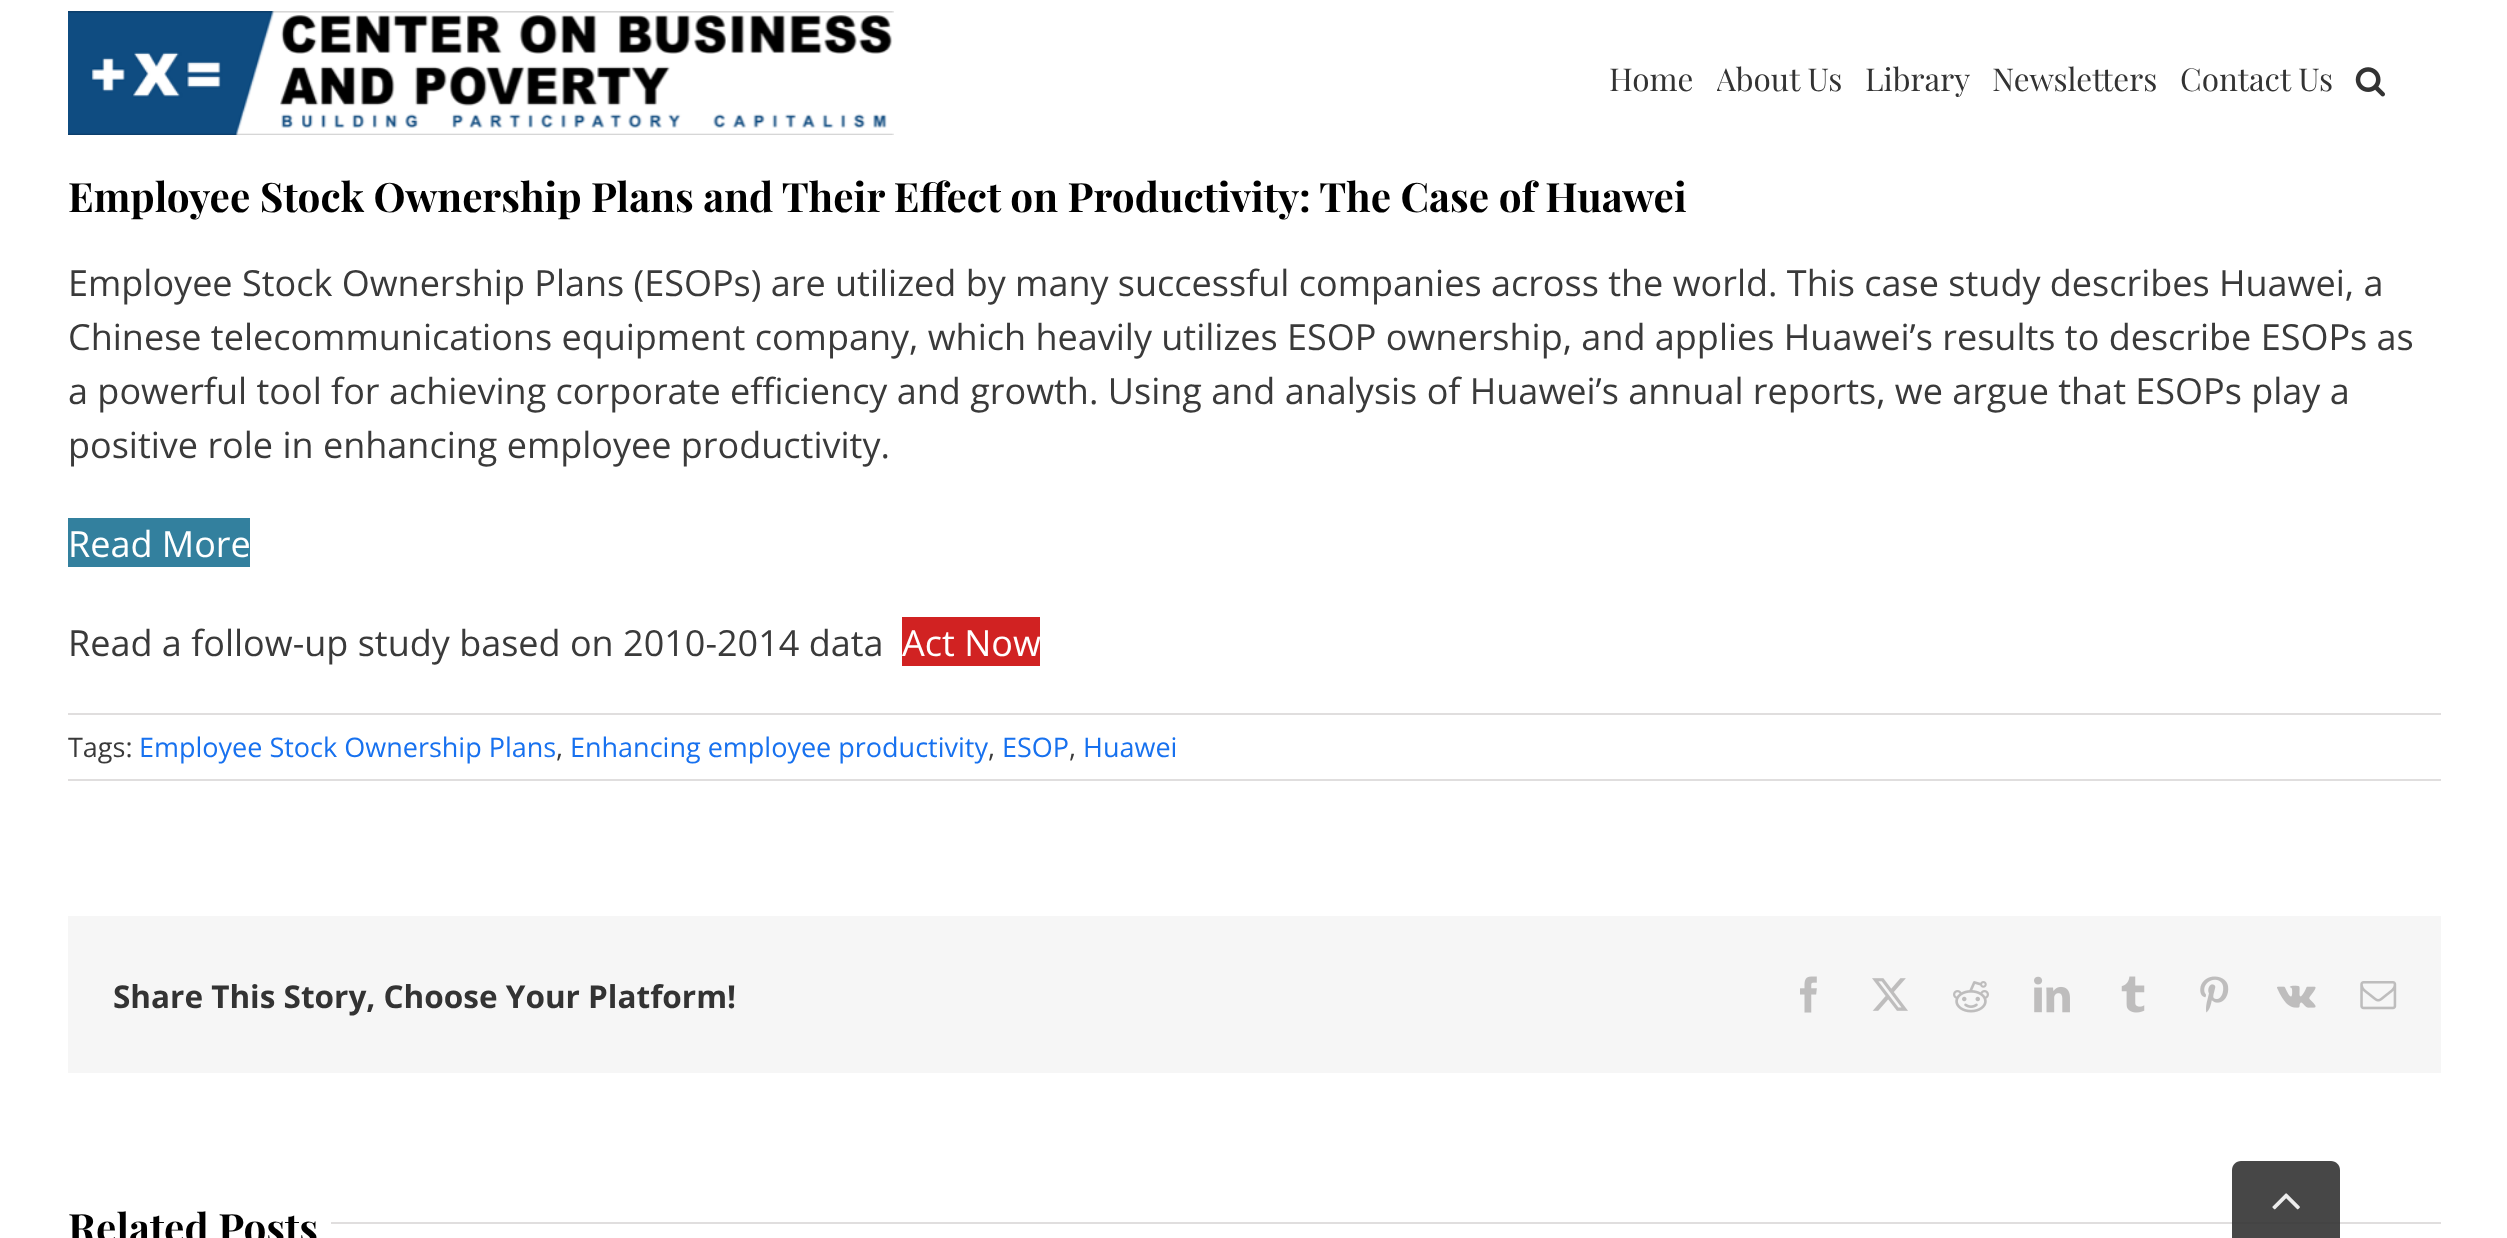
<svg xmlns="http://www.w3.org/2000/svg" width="2507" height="1238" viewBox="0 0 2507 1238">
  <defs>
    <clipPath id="clip1"><rect x="1717" y="0" width="148" height="146"/></clipPath>
    <clipPath id="clip2"><rect x="68" y="716" width="2373" height="63"/></clipPath>
  </defs>
  <rect width="100%" height="100%" fill="rgb(255,255,255)"/>
  <image x="68" y="11" width="826" height="124" href="pic1.png"/>
  <text x="1609" y="91" font-family="Playfair Display" font-size="31.5" fill="rgb(51,51,51)">Home</text>
  <g clip-path="url(#clip1)">
    <text x="1716" y="91" font-family="Playfair Display" font-size="31.5" fill="rgb(51,51,51)">About Us</text>
  </g>
  <g font-family="Playfair Display" font-size="31.5" fill="rgb(51,51,51)">
    <text x="1865" y="91">Library</text>
    <text x="1992" y="91">Newsletters</text>
    <text x="2180" y="91">Contact Us</text>
  </g>
  <image x="2355" y="67" width="30" height="30" href="pic2.png"/>
  <text x="68" y="212" font-family="Playfair Display" font-size="40.5" font-weight="bold" fill="rgb(0,0,0)">Employee Stock Ownership Plans and Their Effect on Productivity: The Case of Huawei</text>
  <g font-family="Open Sans" font-size="36" fill="rgb(58,58,58)">
    <text>
      <tspan x="68" y="296">Employee Stock Ownership Plans (ESOPs) are utilized by many successful companies across the world. This case study describes Huawei, a</tspan>
      <tspan x="68" y="350">Chinese telecommunications equipment company, which heavily utilizes ESOP ownership, and applies Huawei’s results to describe ESOPs as</tspan>
      <tspan x="68" y="404">a powerful tool for achieving corporate efficiency and growth. Using and analysis of Huawei’s annual reports, we argue that ESOPs play a</tspan>
      <tspan x="68" y="458">positive role in enhancing employee productivity.</tspan>
    </text>
  </g>
  <rect x="68" y="518" width="182" height="49" fill="rgb(51,128,158)"/>
  <text x="68" y="557" font-family="Open Sans" font-size="36" fill="rgb(255,255,255)">Read More</text>
  <text x="68" y="656" font-family="Open Sans" font-size="36" fill="rgb(58,58,58)">Read a follow-up study based on 2010-2014 data</text>
  <rect x="902" y="617" width="138" height="49" fill="rgb(209,34,34)"/>
  <text x="902" y="656" font-family="Open Sans" font-size="36" fill="rgb(255,255,255)">Act Now</text>
  <rect x="68" y="713" width="2373" height="2" fill="rgb(224,222,222)"/>
  <rect x="68" y="779" width="2373" height="2" fill="rgb(224,222,222)"/>
  <g clip-path="url(#clip2)">
    <text x="68" y="757" font-family="Open Sans" font-size="27" fill="rgb(58,58,58)">Tags:</text>
  </g>
  <text x="139" y="757" font-family="Open Sans" font-size="27" fill="rgb(23,113,239)">Employee Stock Ownership Plans</text>
  <text x="556" y="757" font-family="Open Sans" font-size="27" fill="rgb(58,58,58)">,</text>
  <text x="570" y="757" font-family="Open Sans" font-size="27" fill="rgb(23,113,239)">Enhancing employee productivity</text>
  <text x="988" y="757" font-family="Open Sans" font-size="27" fill="rgb(58,58,58)">,</text>
  <text x="1002" y="757" font-family="Open Sans" font-size="27" fill="rgb(23,113,239)">ESOP</text>
  <text x="1069" y="757" font-family="Open Sans" font-size="27" fill="rgb(58,58,58)">,</text>
  <text x="1083" y="757" font-family="Open Sans" font-size="27" fill="rgb(23,113,239)">Huawei</text>
  <rect x="68" y="916" width="2373" height="157" fill="rgb(246,246,246)"/>
  <text x="113" y="1008" font-family="Open Sans" font-size="31.5" font-weight="bold" fill="rgb(51,51,51)">Share This Story, Choose Your Platform!</text>
  <image x="1800" y="976" width="17" height="37" href="pic3.png"/>
  <image x="1872" y="978" width="36" height="33" href="pic4.png"/>
  <image x="1953" y="981" width="36" height="32" href="pic5.png"/>
  <image x="2034" y="976" width="36" height="37" href="pic6.png"/>
  <image x="2121" y="976" width="24" height="37" href="pic7.png"/>
  <image x="2200" y="976" width="29" height="37" href="pic8.png"/>
  <image x="2277" y="985" width="39" height="23" href="pic9.png"/>
  <image x="2360" y="981" width="37" height="29" href="pic10.png"/>
  <text x="68" y="1243" font-family="Playfair Display" font-size="40.5" font-weight="bold" fill="rgb(0,0,0)">Related Posts</text>
  <rect x="331" y="1222" width="2110" height="2" fill="rgb(224,222,222)"/>
  <path d="M2241 1161H2331C2336 1161 2340 1165 2340 1170V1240H2232V1170C2232 1165 2236 1161 2241 1161Z" fill="rgba(51,51,51,0.9)"/>
  <image x="2272" y="1193" width="28" height="17" href="pic11.png"/>
</svg>
